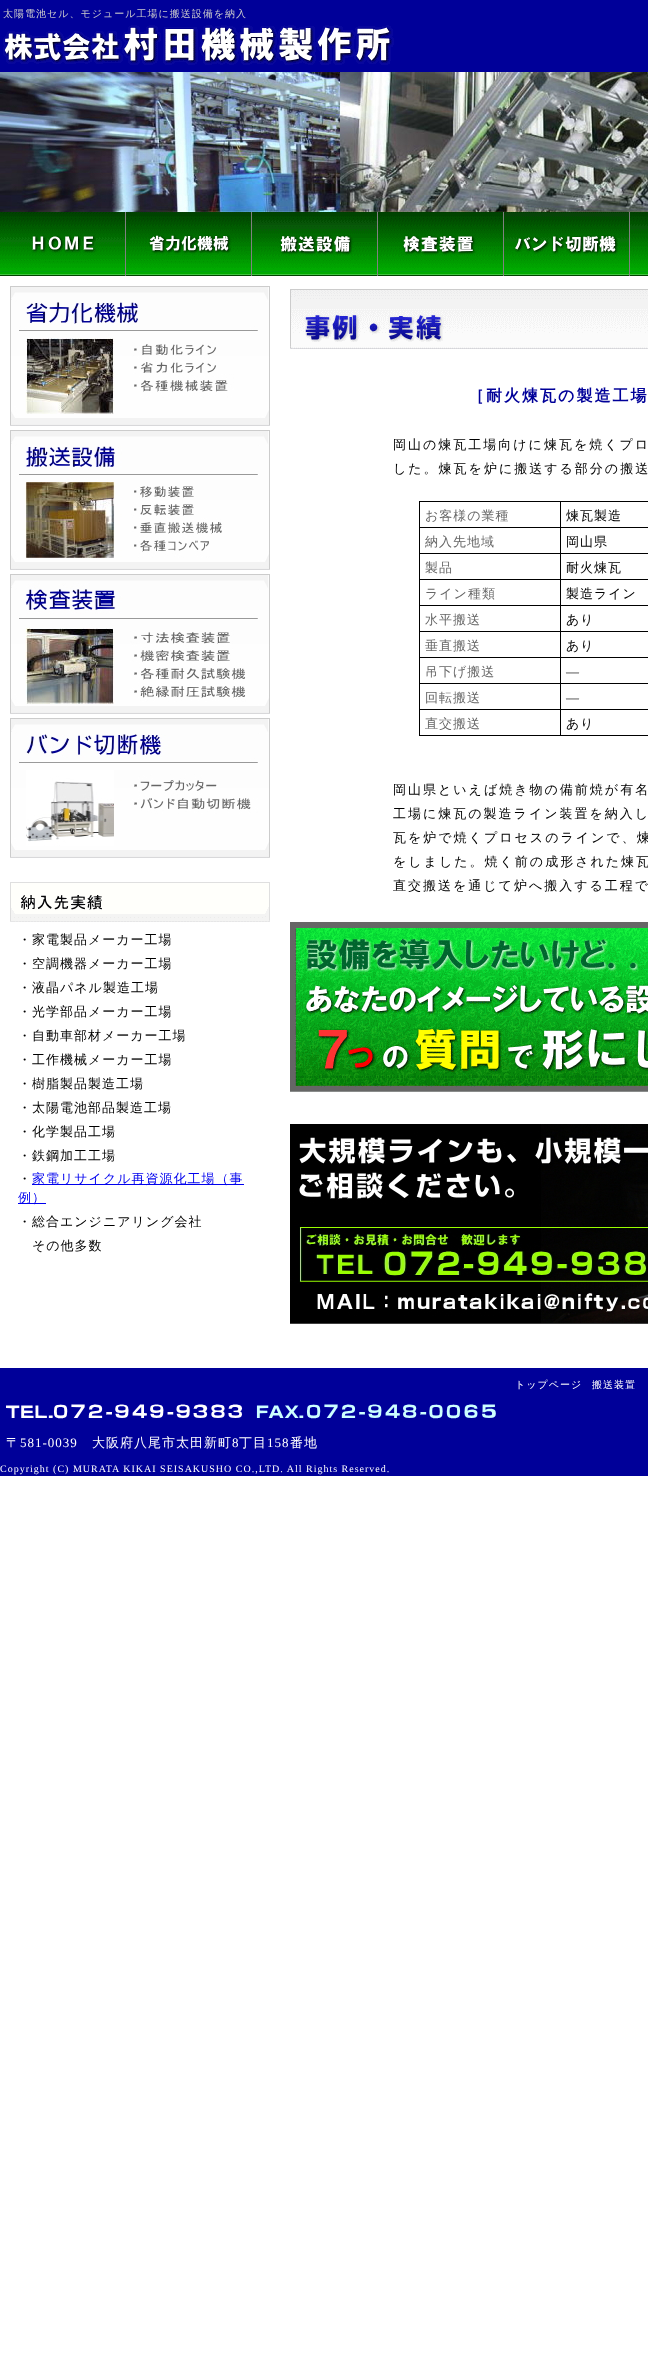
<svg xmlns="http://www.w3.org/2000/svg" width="648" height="2365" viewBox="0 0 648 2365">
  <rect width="100%" height="100%" fill="rgb(255,255,255)"/>
  <rect x="0" y="0" width="648" height="72" fill="rgb(0,0,153)"/>
  <text x="3" y="17" font-family="WenQuanYi Zen Hei" font-size="10" font-weight="500" letter-spacing="1" fill="rgb(204,204,204)">太陽電池セル、モジュール工場に搬送設備を納入</text>
  <image x="3" y="25" width="391" height="40" href="pic1.png"/>
  <image x="0" y="72" width="648" height="140" href="pic2.png"/>
  <image x="0" y="272" width="648" height="4" href="pic3.png"/>
  <rect x="125" y="212" width="1" height="64" fill="rgb(128,128,128)"/>
  <image x="0" y="212" width="125" height="60" href="pic4.png"/>
  <rect x="251" y="212" width="1" height="64" fill="rgb(128,128,128)"/>
  <image x="126" y="212" width="125" height="60" href="pic5.png"/>
  <rect x="377" y="212" width="1" height="64" fill="rgb(128,128,128)"/>
  <image x="252" y="212" width="125" height="60" href="pic6.png"/>
  <rect x="503" y="212" width="1" height="64" fill="rgb(128,128,128)"/>
  <image x="378" y="212" width="125" height="60" href="pic7.png"/>
  <rect x="629" y="212" width="1" height="64" fill="rgb(128,128,128)"/>
  <image x="504" y="212" width="125" height="60" href="pic8.png"/>
  <image x="630" y="212" width="18" height="60" href="pic9.png"/>
  <image x="290" y="289" width="358" height="60" href="pic10.png"/>
  <text x="468" y="401" font-family="WenQuanYi Zen Hei" font-size="16" font-weight="bold" letter-spacing="2" fill="rgb(0,0,153)">［耐火煉瓦の製造工場</text>
  <g font-family="WenQuanYi Zen Hei" font-size="13" font-weight="500" letter-spacing="2" fill="rgb(0,0,0)">
    <text>
      <tspan x="393" y="449">岡山の煉瓦工場向けに煉瓦を焼くプロ</tspan>
      <tspan x="393" y="473">した。煉瓦を炉に搬送する部分の搬送</tspan>
    </text>
  </g>
  <rect x="419" y="501" width="229" height="1" fill="rgb(0,0,0)"/>
  <rect x="419" y="501" width="1" height="235" fill="rgb(0,0,0)"/>
  <rect x="560" y="502" width="1" height="234" fill="rgb(0,0,0)"/>
  <rect x="420" y="527" width="228" height="1" fill="rgb(0,0,0)"/>
  <text x="425" y="520" font-family="WenQuanYi Zen Hei" font-size="13" font-weight="500" letter-spacing="1" fill="rgb(102,102,102)">お客様の業種</text>
  <text x="566" y="520" font-family="WenQuanYi Zen Hei" font-size="13" font-weight="500" letter-spacing="1" fill="rgb(0,0,0)">煉瓦製造</text>
  <rect x="420" y="553" width="228" height="1" fill="rgb(0,0,0)"/>
  <text x="425" y="546" font-family="WenQuanYi Zen Hei" font-size="13" font-weight="500" letter-spacing="1" fill="rgb(102,102,102)">納入先地域</text>
  <text x="566" y="546" font-family="WenQuanYi Zen Hei" font-size="13" font-weight="500" letter-spacing="1" fill="rgb(0,0,0)">岡山県</text>
  <rect x="420" y="579" width="228" height="1" fill="rgb(0,0,0)"/>
  <text x="425" y="572" font-family="WenQuanYi Zen Hei" font-size="13" font-weight="500" letter-spacing="1" fill="rgb(102,102,102)">製品</text>
  <text x="566" y="572" font-family="WenQuanYi Zen Hei" font-size="13" font-weight="500" letter-spacing="1" fill="rgb(0,0,0)">耐火煉瓦</text>
  <rect x="420" y="605" width="228" height="1" fill="rgb(0,0,0)"/>
  <text x="425" y="598" font-family="WenQuanYi Zen Hei" font-size="13" font-weight="500" letter-spacing="1" fill="rgb(102,102,102)">ライン種類</text>
  <text x="566" y="598" font-family="WenQuanYi Zen Hei" font-size="13" font-weight="500" letter-spacing="1" fill="rgb(0,0,0)">製造ライン</text>
  <rect x="420" y="631" width="228" height="1" fill="rgb(0,0,0)"/>
  <text x="425" y="624" font-family="WenQuanYi Zen Hei" font-size="13" font-weight="500" letter-spacing="1" fill="rgb(102,102,102)">水平搬送</text>
  <text x="566" y="624" font-family="WenQuanYi Zen Hei" font-size="13" font-weight="500" letter-spacing="1" fill="rgb(0,0,0)">あり</text>
  <rect x="420" y="657" width="228" height="1" fill="rgb(0,0,0)"/>
  <text x="425" y="650" font-family="WenQuanYi Zen Hei" font-size="13" font-weight="500" letter-spacing="1" fill="rgb(102,102,102)">垂直搬送</text>
  <text x="566" y="650" font-family="WenQuanYi Zen Hei" font-size="13" font-weight="500" letter-spacing="1" fill="rgb(0,0,0)">あり</text>
  <rect x="420" y="683" width="228" height="1" fill="rgb(0,0,0)"/>
  <text x="425" y="676" font-family="WenQuanYi Zen Hei" font-size="13" font-weight="500" letter-spacing="1" fill="rgb(102,102,102)">吊下げ搬送</text>
  <text x="566" y="676" font-family="Liberation Serif" font-size="13" letter-spacing="1" fill="rgb(0,0,0)">―</text>
  <rect x="420" y="709" width="228" height="1" fill="rgb(0,0,0)"/>
  <text x="425" y="702" font-family="WenQuanYi Zen Hei" font-size="13" font-weight="500" letter-spacing="1" fill="rgb(102,102,102)">回転搬送</text>
  <text x="566" y="702" font-family="Liberation Serif" font-size="13" letter-spacing="1" fill="rgb(0,0,0)">―</text>
  <rect x="420" y="735" width="228" height="1" fill="rgb(0,0,0)"/>
  <text x="425" y="728" font-family="WenQuanYi Zen Hei" font-size="13" font-weight="500" letter-spacing="1" fill="rgb(102,102,102)">直交搬送</text>
  <text x="566" y="728" font-family="WenQuanYi Zen Hei" font-size="13" font-weight="500" letter-spacing="1" fill="rgb(0,0,0)">あり</text>
  <g font-family="WenQuanYi Zen Hei" font-size="13" font-weight="500" letter-spacing="2" fill="rgb(0,0,0)">
    <text>
      <tspan x="393" y="794">岡山県といえば焼き物の備前焼が有名</tspan>
      <tspan x="393" y="818">工場に煉瓦の製造ライン装置を納入し</tspan>
      <tspan x="393" y="842">瓦を炉で焼くプロセスのラインで、煉</tspan>
      <tspan x="393" y="866">をしました。焼く前の成形された煉瓦</tspan>
      <tspan x="393" y="890">直交搬送を通じて炉へ搬入する工程で</tspan>
    </text>
  </g>
  <image x="290" y="922" width="358" height="170" href="pic11.png"/>
  <image x="290" y="1124" width="358" height="200" href="pic12.png"/>
  <image x="10" y="286" width="260" height="140" href="pic13.png"/>
  <image x="10" y="430" width="260" height="140" href="pic14.png"/>
  <image x="10" y="574" width="260" height="140" href="pic15.png"/>
  <image x="10" y="718" width="260" height="140" href="pic16.png"/>
  <image x="10" y="882" width="260" height="40" href="pic17.png"/>
  <g font-family="WenQuanYi Zen Hei" font-size="13" font-weight="500" letter-spacing="1" fill="rgb(0,0,0)">
    <text>
      <tspan x="18" y="944">・家電製品メーカー工場</tspan>
      <tspan x="18" y="968">・空調機器メーカー工場</tspan>
      <tspan x="18" y="992">・液晶パネル製造工場</tspan>
      <tspan x="18" y="1016">・光学部品メーカー工場</tspan>
      <tspan x="18" y="1040">・自動車部材メーカー工場</tspan>
      <tspan x="18" y="1064">・工作機械メーカー工場</tspan>
      <tspan x="18" y="1088">・樹脂製品製造工場</tspan>
      <tspan x="18" y="1112">・太陽電池部品製造工場</tspan>
      <tspan x="18" y="1136">・化学製品工場</tspan>
      <tspan x="18" y="1160">・鉄鋼加工工場</tspan>
      <tspan x="18" y="1183">・</tspan>
    </text>
  </g>
  <rect x="32" y="1184" width="212" height="1" fill="rgb(0,0,238)"/>
  <text x="32" y="1183" font-family="WenQuanYi Zen Hei" font-size="13" font-weight="500" letter-spacing="1" fill="rgb(0,0,238)">家電リサイクル再資源化工場（事</text>
  <rect x="18" y="1203" width="28" height="1" fill="rgb(0,0,238)"/>
  <text x="18" y="1202" font-family="WenQuanYi Zen Hei" font-size="13" font-weight="500" letter-spacing="1" fill="rgb(0,0,238)">例）</text>
  <g font-family="WenQuanYi Zen Hei" font-size="13" font-weight="500" letter-spacing="1" fill="rgb(0,0,0)">
    <text x="18" y="1226">・総合エンジニアリング会社</text>
    <text x="32" y="1250">その他多数</text>
  </g>
  <rect x="0" y="1368" width="648" height="108" fill="rgb(0,0,153)"/>
  <g font-family="WenQuanYi Zen Hei" font-size="10" font-weight="500" letter-spacing="1" fill="rgb(255,255,255)">
    <text x="515" y="1388">トップページ</text>
    <text x="592" y="1388">搬送装置</text>
  </g>
  <image x="6" y="1404" width="490" height="15" href="pic18.png"/>
  <text x="6" y="1447" font-family="WenQuanYi Zen Hei" font-size="13" font-weight="500" letter-spacing="1" fill="rgb(255,255,255)">〒</text>
  <text x="20" y="1447" font-family="Liberation Serif" font-size="13" letter-spacing="1" fill="rgb(255,255,255)">581-0039</text>
  <text x="92" y="1447" font-family="WenQuanYi Zen Hei" font-size="13" font-weight="500" letter-spacing="1" fill="rgb(255,255,255)">大阪府八尾市太田新町</text>
  <text x="232" y="1447" font-family="Liberation Serif" font-size="13" letter-spacing="1" fill="rgb(255,255,255)">8</text>
  <text x="239" y="1447" font-family="WenQuanYi Zen Hei" font-size="13" font-weight="500" letter-spacing="1" fill="rgb(255,255,255)">丁目</text>
  <text x="267" y="1447" font-family="Liberation Serif" font-size="13" letter-spacing="1" fill="rgb(255,255,255)">158</text>
  <text x="290" y="1447" font-family="WenQuanYi Zen Hei" font-size="13" font-weight="500" letter-spacing="1" fill="rgb(255,255,255)">番地</text>
  <text x="0" y="1472" font-family="Liberation Serif" font-size="10" letter-spacing="1" fill="rgb(255,255,255)">Copyright (C) MURATA KIKAI SEISAKUSHO CO.,LTD. All Rights Reserved.</text>
</svg>
